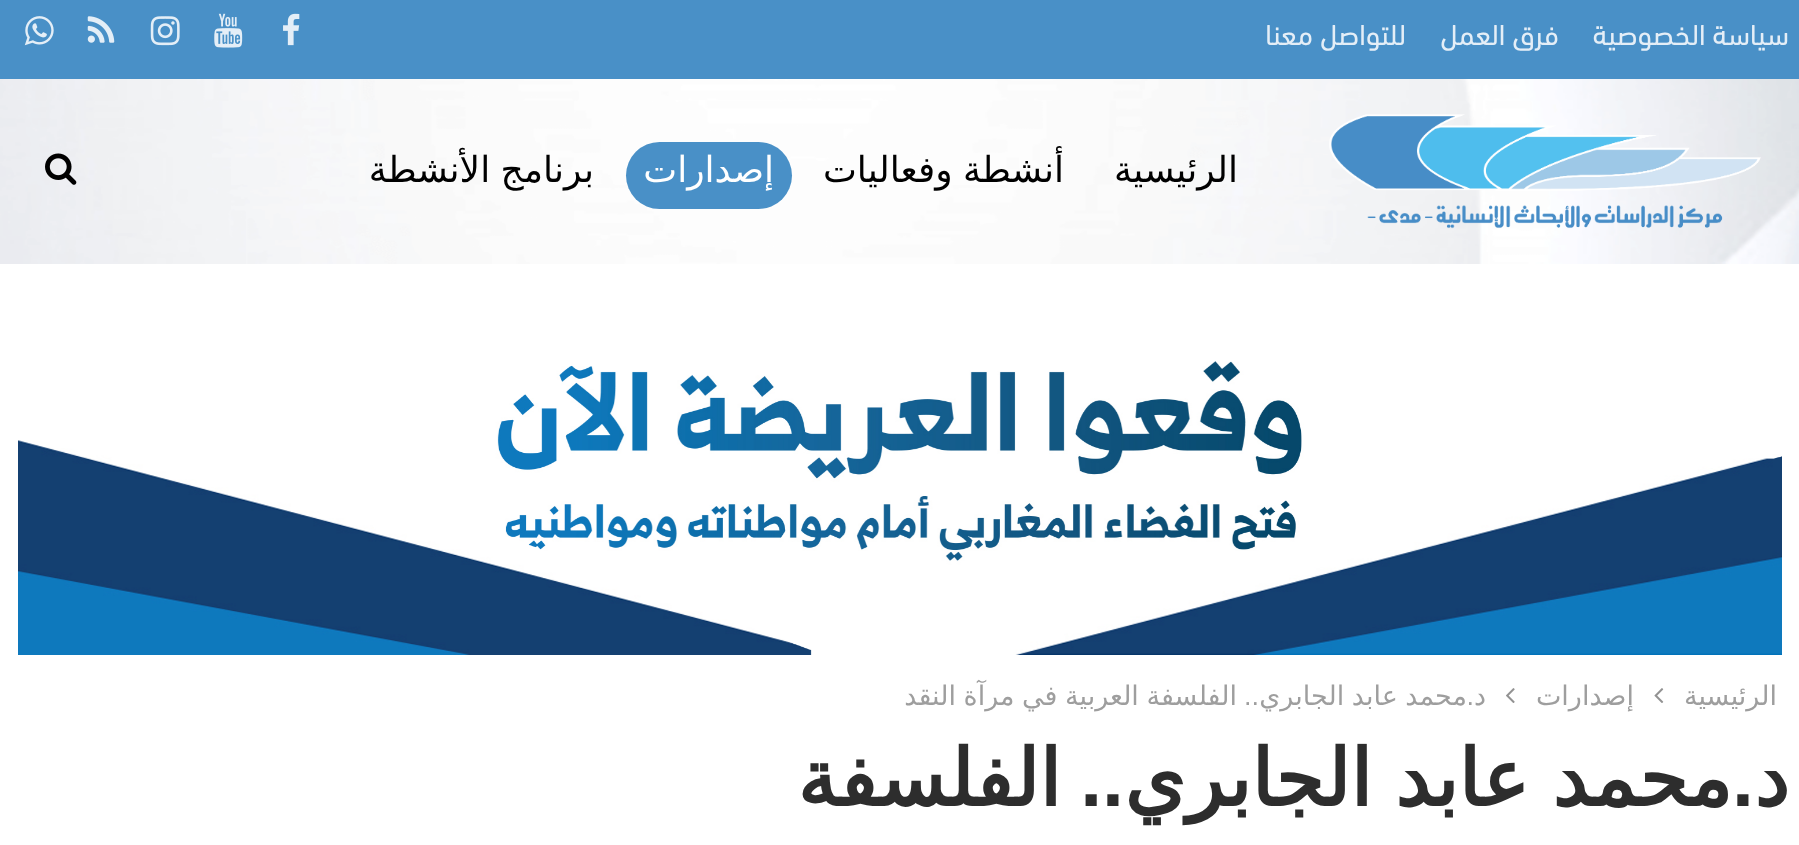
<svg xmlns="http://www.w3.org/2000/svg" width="1799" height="845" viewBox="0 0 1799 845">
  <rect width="100%" height="100%" fill="rgb(255,255,255)"/>
  <image x="0" y="79" width="1799" height="185" href="pic1.png"/>
  <rect x="0" y="0" width="1799" height="79" fill="rgb(73,144,199)"/>
  <g font-family="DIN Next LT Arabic" font-size="29.25" direction="rtl" fill="rgb(228,238,247)">
    <text x="1789" y="45">سياسة الخصوصية</text>
    <text x="1559" y="45">فرق العمل</text>
    <text x="1406" y="45">للتواصل معنا</text>
  </g>
  <image x="283" y="13" width="17" height="33" href="pic2.png"/>
  <image x="214" y="13" width="29" height="35" href="pic3.png"/>
  <image x="150" y="16" width="30" height="30" href="pic4.png"/>
  <image x="87" y="16" width="28" height="27" href="pic5.png"/>
  <image x="24" y="16" width="30" height="30" href="pic6.png"/>
  <image x="1329" y="114" width="432" height="115" href="pic7.png"/>
  <g font-family="DejaVu Sans" font-size="36" direction="rtl" fill="rgb(0,0,0)">
    <text x="1238" y="182">الرئيسية</text>
    <text x="1064" y="182" word-spacing="-1">أنشطة وفعاليات</text>
  </g>
  <rect x="626" y="142" width="166" height="67" rx="33.5" fill="rgb(73,144,199)"/>
  <text x="774" y="182" font-family="DejaVu Sans" font-size="36" direction="rtl" fill="rgb(255,255,255)">إصدارات</text>
  <text x="594" y="182" word-spacing="-1" font-family="DejaVu Sans" font-size="36" direction="rtl" fill="rgb(0,0,0)">برنامج الأنشطة</text>
  <image x="45" y="153" width="32" height="32" href="pic8.png"/>
  <image x="18" y="361" width="1764" height="294" href="pic9.png"/>
  <text x="1777" y="705" font-family="DejaVu Sans" font-size="27" direction="rtl" fill="rgb(158,158,158)">الرئيسية</text>
  <image x="1654" y="688" width="10" height="15" href="pic10.png"/>
  <text x="1634" y="705" font-family="DejaVu Sans" font-size="27" direction="rtl" fill="rgb(158,158,158)">إصدارات</text>
  <image x="1506" y="688" width="9" height="15" href="pic11.png"/>
  <text x="1486" y="705" font-family="DejaVu Sans" font-size="27" direction="rtl" fill="rgb(158,158,158)">د</text>
  <text x="1474" y="705" font-family="Liberation Sans" font-size="27" direction="rtl" fill="rgb(158,158,158)">.</text>
  <text x="1467" y="705" word-spacing="-1" font-family="DejaVu Sans" font-size="27" direction="rtl" fill="rgb(158,158,158)">محمد عابد الجابري</text>
  <text x="1259" y="705" font-family="Liberation Sans" font-size="27" direction="rtl" fill="rgb(158,158,158)">..</text>
  <text x="1237" y="705" word-spacing="-1" font-family="DejaVu Sans" font-size="27" direction="rtl" fill="rgb(158,158,158)">الفلسفة العربية في مرآة النقد</text>
  <text x="1789" y="806" font-family="DejaVu Sans" font-size="78.75" font-weight="bold" direction="rtl" fill="rgb(45,45,45)">د</text>
  <text x="1754" y="806" font-family="Liberation Sans" font-size="78.75" font-weight="bold" direction="rtl" fill="rgb(45,45,45)">.</text>
  <text x="1732" y="806" word-spacing="-2" font-family="DejaVu Sans" font-size="78.75" font-weight="bold" direction="rtl" fill="rgb(45,45,45)">محمد عابد الجابري</text>
  <text x="1124" y="806" font-family="Liberation Sans" font-size="78.75" font-weight="bold" direction="rtl" fill="rgb(45,45,45)">..</text>
  <text x="1061" y="806" font-family="DejaVu Sans" font-size="78.75" font-weight="bold" direction="rtl" fill="rgb(45,45,45)">الفلسفة</text>
</svg>
